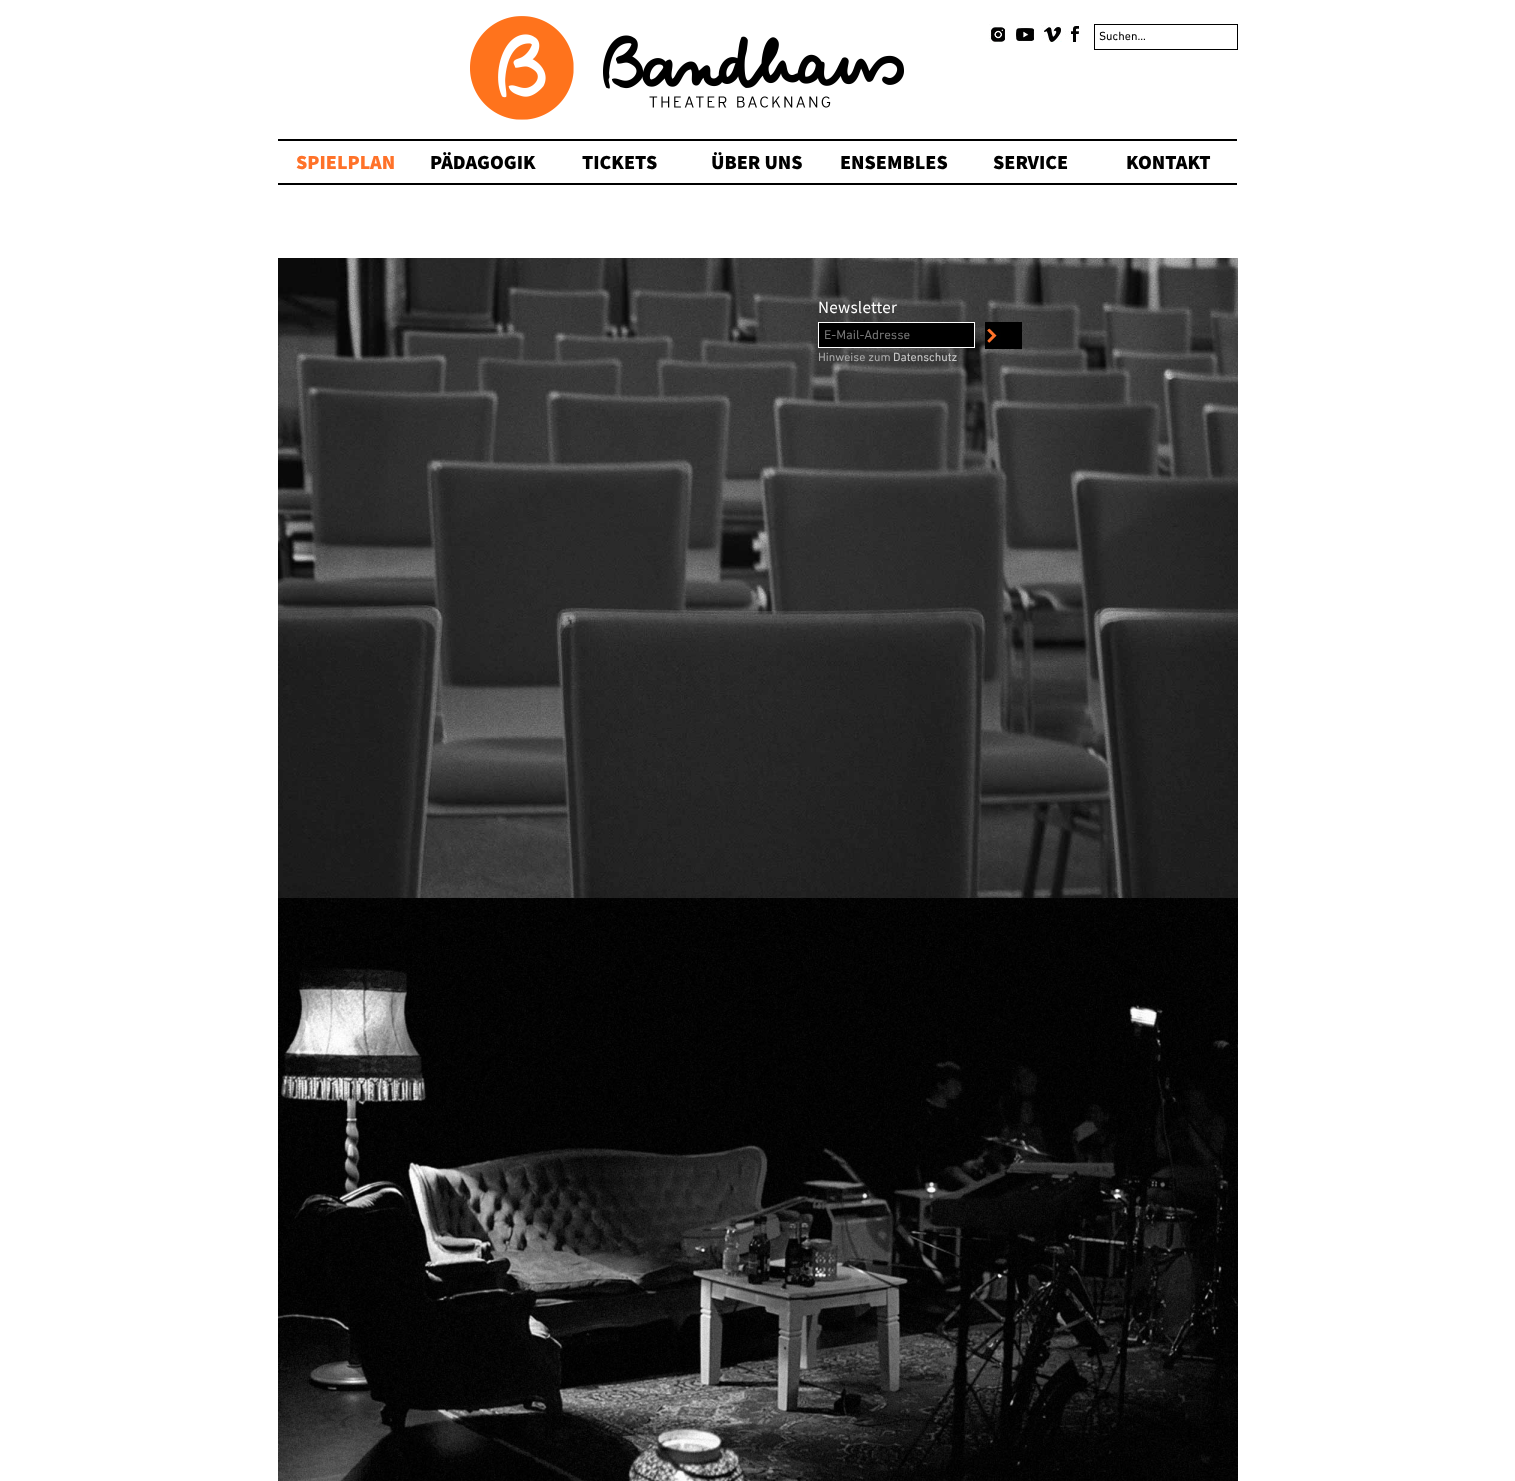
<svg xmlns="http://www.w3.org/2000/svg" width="1515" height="1481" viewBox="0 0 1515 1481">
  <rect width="100%" height="100%" fill="rgb(255,255,255)"/>
  <image x="470" y="16" width="434" height="104" href="pic1.png"/>
  <image x="989" y="24" width="16" height="18" href="pic2.png"/>
  <image x="1016" y="24" width="18" height="17" href="pic3.png"/>
  <image x="1041" y="25" width="21" height="17" href="pic4.png"/>
  <image x="1065" y="26" width="15" height="16" href="pic5.png"/>
  <rect x="1094.5" y="24.5" width="143" height="25" fill="none" stroke="rgb(0,0,0)"/>
  <text x="1099" y="40" font-family="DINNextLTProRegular" font-size="12" fill="rgb(0,0,0)">Suchen...</text>
  <rect x="278" y="139" width="959" height="2" fill="rgb(0,0,0)"/>
  <rect x="278" y="183" width="959" height="2" fill="rgb(0,0,0)"/>
  <text x="296" y="169" font-family="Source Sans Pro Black" font-size="20" font-weight="900" fill="rgb(255,114,41)">SPIELPLAN</text>
  <g font-family="Source Sans Pro Black" font-size="20" font-weight="900" fill="rgb(0,0,0)">
    <text x="430" y="169">PÄDAGOGIK</text>
    <text x="582" y="169">TICKETS</text>
    <text x="711" y="169">ÜBER UNS</text>
    <text x="840" y="169">ENSEMBLES</text>
    <text x="993" y="169">SERVICE</text>
    <text x="1126" y="169">KONTAKT</text>
  </g>
  <image x="278" y="258" width="960" height="640" href="pic6.png"/>
  <image x="278" y="898" width="960" height="583" href="pic7.png"/>
  <text x="818" y="313" font-family="Source Sans Pro" font-size="17" letter-spacing="0.25" fill="rgb(255,255,255)">Newsletter</text>
  <rect x="818.5" y="322.5" width="156" height="25" fill="rgb(0,0,0)" stroke="rgb(255,255,255)"/>
  <text x="824" y="339" font-family="DINNextLTProRegular" font-size="13" fill="rgb(117,117,117)">E-Mail-Adresse</text>
  <image x="985" y="322" width="37" height="27" href="pic8.png"/>
  <text x="818" y="361" font-family="DINNextLTProRegular" font-size="12" fill="rgb(170,170,170)">Hinweise zum</text>
  <text x="893" y="361" font-family="DINNextLTProRegular" font-size="12" fill="rgb(204,204,204)">Datenschutz</text>
</svg>
